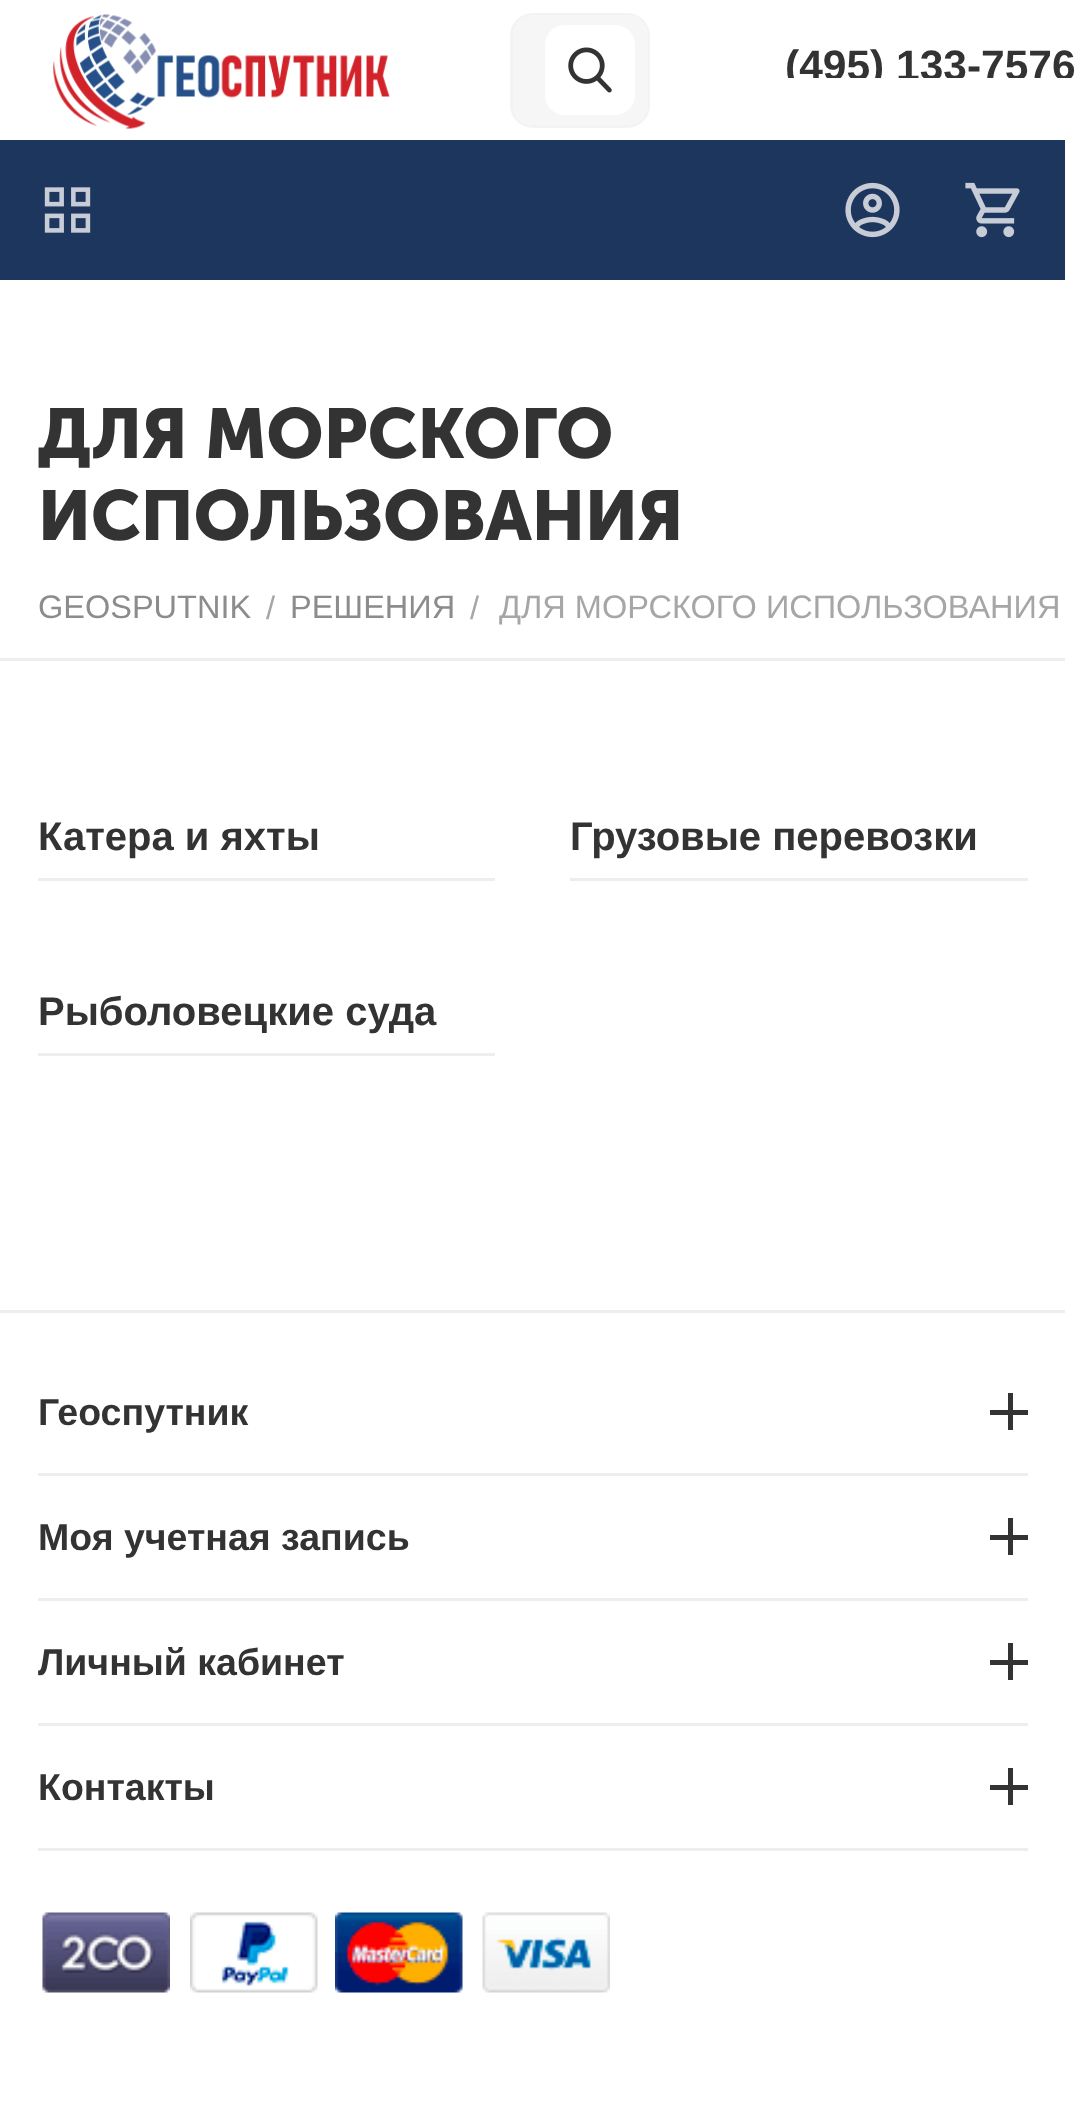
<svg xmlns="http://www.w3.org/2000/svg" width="1084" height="2102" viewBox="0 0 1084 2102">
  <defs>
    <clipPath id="clip1"><rect x="785" y="38" width="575" height="40"/></clipPath>
  </defs>
  <rect width="100%" height="100%" fill="rgb(255,255,255)"/>
  <image x="53" y="14" width="337" height="115" href="pic1.png"/>
  <rect x="511.5" y="14.5" width="137" height="112" rx="21.5" fill="none" stroke="rgb(243,243,243)" stroke-width="3"/>
  <rect x="513" y="15" width="135" height="110" rx="20" fill="rgb(246,246,246)"/>
  <rect x="545" y="25" width="90" height="90" rx="20" fill="rgb(255,255,255)"/>
  <image x="568" y="47" width="44" height="46" href="pic2.png"/>
  <g clip-path="url(#clip1)">
    <text x="785" y="80" font-family="Liberation Sans" font-size="42.5" font-weight="bold" fill="rgb(51,51,51)">(495) 133-7576</text>
  </g>
  <rect x="0" y="140" width="1065" height="140" fill="rgb(29,54,93)"/>
  <image x="44" y="187" width="47" height="46" href="pic3.png"/>
  <image x="845" y="182" width="55" height="56" href="pic4.png"/>
  <image x="965" y="182" width="55" height="56" href="pic5.png"/>
  <g font-family="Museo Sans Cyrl" font-size="70" font-weight="bold" fill="rgb(51,51,51)">
    <text>
      <tspan x="38" y="458">ДЛЯ МОРСКОГО</tspan>
      <tspan x="38" y="540">ИСПОЛЬЗОВАНИЯ</tspan>
    </text>
  </g>
  <rect x="0" y="658" width="1065" height="3" fill="rgb(238,238,238)"/>
  <text x="38" y="618" font-family="Liberation Sans" font-size="32.5" fill="rgb(140,140,140)">GEOSPUTNIK</text>
  <text x="266" y="619" font-family="Liberation Sans" font-size="32.5" fill="rgb(166,166,166)">/</text>
  <text x="290" y="618" font-family="Liberation Sans" font-size="32.5" fill="rgb(140,140,140)">РЕШЕНИЯ</text>
  <g font-family="Liberation Sans" font-size="32.5" fill="rgb(166,166,166)">
    <text x="470" y="619">/</text>
    <text x="499" y="618">ДЛЯ МОРСКОГО ИСПОЛЬЗОВАНИЯ</text>
  </g>
  <rect x="38" y="878" width="457" height="3" fill="rgb(238,238,238)"/>
  <text x="38" y="850" font-family="Liberation Sans" font-size="40" font-weight="bold" fill="rgb(51,51,51)">Катера и яхты</text>
  <rect x="570" y="878" width="458" height="3" fill="rgb(238,238,238)"/>
  <text x="570" y="850" font-family="Liberation Sans" font-size="40" font-weight="bold" fill="rgb(51,51,51)">Грузовые перевозки</text>
  <rect x="38" y="1053" width="457" height="3" fill="rgb(238,238,238)"/>
  <text x="38" y="1025" font-family="Liberation Sans" font-size="40" font-weight="bold" fill="rgb(51,51,51)">Рыболовецкие суда</text>
  <rect x="0" y="1310" width="1065" height="3" fill="rgb(238,238,238)"/>
  <rect x="38" y="1473" width="990" height="3" fill="rgb(238,238,238)"/>
  <text x="38" y="1425" font-family="Liberation Sans" font-size="37.5" font-weight="bold" fill="rgb(51,51,51)">Геоспутник</text>
  <rect x="1008" y="1393" width="5" height="37" fill="rgb(51,51,51)"/>
  <rect x="990" y="1410" width="38" height="5" fill="rgb(51,51,51)"/>
  <rect x="38" y="1598" width="990" height="3" fill="rgb(238,238,238)"/>
  <text x="38" y="1550" font-family="Liberation Sans" font-size="37.5" font-weight="bold" fill="rgb(51,51,51)">Моя учетная запись</text>
  <rect x="1008" y="1518" width="5" height="37" fill="rgb(51,51,51)"/>
  <rect x="990" y="1535" width="38" height="5" fill="rgb(51,51,51)"/>
  <rect x="38" y="1723" width="990" height="3" fill="rgb(238,238,238)"/>
  <text x="38" y="1675" font-family="Liberation Sans" font-size="37.5" font-weight="bold" fill="rgb(51,51,51)">Личный кабинет</text>
  <rect x="1008" y="1643" width="5" height="37" fill="rgb(51,51,51)"/>
  <rect x="990" y="1660" width="38" height="5" fill="rgb(51,51,51)"/>
  <rect x="38" y="1848" width="990" height="3" fill="rgb(238,238,238)"/>
  <text x="38" y="1800" font-family="Liberation Sans" font-size="37.5" font-weight="bold" fill="rgb(51,51,51)">Контакты</text>
  <rect x="1008" y="1768" width="5" height="37" fill="rgb(51,51,51)"/>
  <rect x="990" y="1785" width="38" height="5" fill="rgb(51,51,51)"/>
  <image x="42" y="1912" width="128" height="81" href="pic6.png"/>
  <image x="190" y="1912" width="128" height="81" href="pic7.png"/>
  <image x="335" y="1912" width="128" height="81" href="pic8.png"/>
  <image x="482" y="1912" width="128" height="81" href="pic9.png"/>
</svg>
